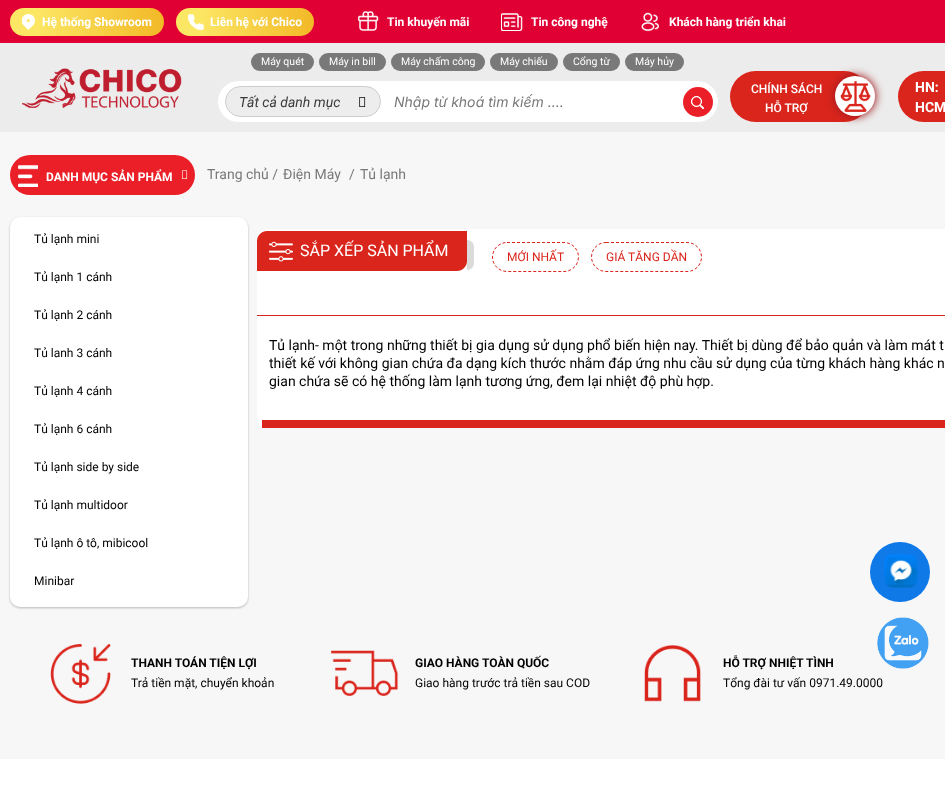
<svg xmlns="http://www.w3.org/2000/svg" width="945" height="810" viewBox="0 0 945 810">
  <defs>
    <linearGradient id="g1" gradientUnits="userSpaceOnUse" x1="10" y1="22" x2="367" y2="22"><stop offset="0.07" stop-color="rgb(252,231,101)"/><stop offset="0.48" stop-color="rgb(241,178,30)"/><stop offset="0.7" stop-color="rgb(250,228,8)"/><stop offset="1" stop-color="rgb(246,205,18)"/></linearGradient>
    <linearGradient id="g2" gradientUnits="userSpaceOnUse" x1="176" y1="22" x2="496" y2="22"><stop offset="0.07" stop-color="rgb(252,231,101)"/><stop offset="0.48" stop-color="rgb(241,178,30)"/><stop offset="0.7" stop-color="rgb(250,228,8)"/><stop offset="1" stop-color="rgb(246,205,18)"/></linearGradient>
  </defs>
  <rect width="100%" height="100%" fill="rgb(247,247,247)"/>
  <rect x="0" y="0" width="945" height="43" fill="rgb(225,0,52)"/>
  <rect x="10" y="8" width="154" height="28" rx="14" fill="url(#g1)"/>
  <image x="22" y="14" width="13" height="16" href="pic1.png"/>
  <text x="42" y="26" font-family="Roboto" font-size="12" font-weight="bold" fill="rgb(255,255,255)">Hệ thống Showroom</text>
  <rect x="176" y="8" width="138" height="28" rx="14" fill="url(#g2)"/>
  <image x="188" y="14" width="16" height="16" href="pic2.png"/>
  <text x="210" y="26" font-family="Roboto" font-size="12" font-weight="bold" fill="rgb(255,255,255)">Liên hệ với Chico</text>
  <image x="358" y="11" width="21" height="20" href="pic3.png"/>
  <text x="387" y="26" font-family="Roboto" font-size="12" font-weight="bold" fill="rgb(255,255,255)">Tin khuyến mãi</text>
  <image x="501" y="13" width="22" height="18" href="pic4.png"/>
  <text x="531" y="26" font-family="Roboto" font-size="12" font-weight="bold" fill="rgb(255,255,255)">Tin công nghệ</text>
  <image x="641" y="12" width="18" height="20" href="pic5.png"/>
  <text x="669" y="26" font-family="Roboto" font-size="12" font-weight="bold" fill="rgb(255,255,255)">Khách hàng triển khai</text>
  <rect x="0" y="43" width="945" height="89" fill="rgb(236,236,236)"/>
  <image x="22" y="68" width="160" height="40" href="pic6.png"/>
  <rect x="251" y="53" width="63" height="18" rx="9" fill="rgb(121,121,121)"/>
  <text x="261" y="65" font-family="Roboto" font-size="10.5" fill="rgb(255,255,255)">Máy quét</text>
  <rect x="319" y="53" width="67" height="18" rx="9" fill="rgb(121,121,121)"/>
  <text x="329" y="65" font-family="Roboto" font-size="10.5" fill="rgb(255,255,255)">Máy in bill</text>
  <rect x="391" y="53" width="94" height="18" rx="9" fill="rgb(121,121,121)"/>
  <text x="401" y="65" font-family="Roboto" font-size="10.5" fill="rgb(255,255,255)">Máy chấm công</text>
  <rect x="490" y="53" width="68" height="18" rx="9" fill="rgb(121,121,121)"/>
  <text x="500" y="65" font-family="Roboto" font-size="10.5" fill="rgb(255,255,255)">Máy chiếu</text>
  <rect x="563" y="53" width="57" height="18" rx="9" fill="rgb(121,121,121)"/>
  <text x="573" y="65" font-family="Roboto" font-size="10.5" fill="rgb(255,255,255)">Cổng từ</text>
  <rect x="625" y="53" width="59" height="18" rx="9" fill="rgb(121,121,121)"/>
  <text x="635" y="65" font-family="Roboto" font-size="10.5" fill="rgb(255,255,255)">Máy hủy</text>
  <rect x="218" y="81" width="500" height="41" rx="20.5" fill="rgb(255,255,255)"/>
  <rect x="225.5" y="86.5" width="155" height="30" rx="15" fill="rgb(237,237,237)" stroke="rgb(208,203,203)"/>
  <text x="239" y="107" font-family="Roboto" font-size="14" font-style="italic" fill="rgb(58,58,58)">Tất cả danh mục</text>
  <image x="359" y="97" width="7" height="10" href="pic7.png"/>
  <text x="394" y="107" font-family="Inter" font-size="14" font-style="italic" fill="rgb(121,121,121)">Nhập từ khoá tìm kiếm ....</text>
  <circle cx="698" cy="102" r="15" fill="rgb(235,31,39)"/>
  <image x="691" y="96" width="13" height="13" href="pic8.png"/>
  <rect x="730" y="71" width="140" height="51" rx="25.5" fill="rgb(218,37,28)"/>
  <text x="751" y="93" font-family="Roboto" font-size="12" font-weight="500" fill="rgb(255,255,255)">CHÍNH SÁCH</text>
  <rect x="834" y="75" width="42" height="42" rx="21" fill="rgb(159,27,32)" filter="blur(4.5px)"/>
  <circle cx="855" cy="96" r="20" fill="rgb(255,255,255)"/>
  <image x="840" y="80" width="31" height="32" href="pic9.png"/>
  <text x="765" y="112" font-family="Roboto" font-size="12" font-weight="500" fill="rgb(255,255,255)">HỖ TRỢ</text>
  <rect x="898" y="71" width="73" height="51" rx="25.5" fill="rgb(218,37,28)"/>
  <g font-family="Roboto" font-size="14" font-weight="bold" fill="rgb(255,255,255)">
    <text>
      <tspan x="915" y="92">HN:</tspan>
      <tspan x="915" y="112">HCM</tspan>
    </text>
  </g>
  <rect x="10" y="155" width="185" height="40" rx="20" fill="rgb(235,31,39)"/>
  <image x="18" y="165" width="20" height="22" href="pic10.png"/>
  <text x="46" y="181" font-family="Roboto" font-size="12" font-weight="bold" fill="rgb(255,255,255)">DANH MỤC SẢN PHẨM</text>
  <image x="182" y="170" width="6" height="9" href="pic11.png"/>
  <g font-family="Roboto" font-size="14" fill="rgb(121,121,121)">
    <text x="207" y="179">Trang chủ /</text>
    <text x="283" y="179">Điện Máy</text>
    <text x="349" y="179">/</text>
    <text x="360" y="179">Tủ lạnh</text>
  </g>
  <rect x="10" y="218" width="238" height="390" rx="10" fill="rgba(0,0,0,0.25)" filter="blur(1px)"/>
  <rect x="10" y="217" width="238" height="390" rx="10" fill="rgb(255,255,255)"/>
  <g font-family="Roboto" font-size="12" fill="rgb(0,0,0)">
    <text x="34" y="243">Tủ lạnh mini</text>
    <text x="34" y="281">Tủ lạnh 1 cánh</text>
    <text x="34" y="319">Tủ lạnh 2 cánh</text>
    <text x="34" y="357">Tủ lanh 3 cánh</text>
    <text x="34" y="395">Tủ lạnh 4 cánh</text>
    <text x="34" y="433">Tủ lạnh 6 cánh</text>
    <text x="34" y="471">Tủ lạnh side by side</text>
    <text x="34" y="509">Tủ lạnh multidoor</text>
    <text x="34" y="547">Tủ lạnh ô tô, mibicool</text>
    <text x="34" y="585">Minibar</text>
  </g>
  <rect x="257" y="229" width="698" height="199" rx="10" fill="rgb(255,255,255)"/>
  <rect x="262" y="420" width="683" height="8" fill="rgb(218,37,28)"/>
  <path d="M267 231H467V261C467 266.5 462.5 271 457 271H257V241C257 235.5 261.5 231 267 231Z" fill="rgb(218,37,28)"/>
  <image x="269" y="241" width="24" height="21" href="pic12.png"/>
  <text x="300" y="256" font-family="Roboto" font-size="16" fill="rgb(255,255,255)">SẮP XẾP SẢN PHẨM</text>
  <path d="M467 240C471 240 474 243 474 247V263C474 267 471 270 467 270Z" fill="rgb(219,219,219)"/>
  <path d="M507 242.5H564C572 242.5 578.5 249 578.5 257C578.5 265 572 271.5 564 271.5H507C499 271.5 492.5 265 492.5 257C492.5 249 499 242.5 507 242.5Z" fill="none" stroke="rgb(218,37,28)" stroke-dasharray="3 2"/>
  <text x="507" y="261" font-family="Roboto" font-size="12" fill="rgb(218,37,28)">MỚI NHẤT</text>
  <path d="M606 242.5H687C695 242.5 701.5 249 701.5 257C701.5 265 695 271.5 687 271.5H606C598 271.5 591.5 265 591.5 257C591.5 249 598 242.5 606 242.5Z" fill="none" stroke="rgb(218,37,28)" stroke-dasharray="3 2"/>
  <text x="606" y="261" font-family="Roboto" font-size="12" fill="rgb(218,37,28)">GIÁ TĂNG DẦN</text>
  <rect x="257" y="315" width="688" height="1" fill="rgb(218,37,28)"/>
  <g font-family="Roboto" font-size="14" fill="rgb(0,0,0)">
    <text>
      <tspan x="269" y="350">Tủ lạnh- một trong những thiết bị gia dụng sử dụng phổ biến hiện nay. Thiết bị dùng để bảo quản và làm mát t</tspan>
      <tspan x="269" y="368">thiết kế với không gian chứa đa dạng kích thước nhằm đáp ứng nhu cầu sử dụng của từng khách hàng khác n</tspan>
      <tspan x="269" y="386">gian chứa sẽ có hệ thống làm lạnh tương ứng, đem lại nhiệt độ phù hợp.</tspan>
    </text>
  </g>
  <circle cx="900" cy="572" r="30" fill="rgb(15,121,232)"/>
  <image x="884" y="554" width="34" height="34" href="pic13.png"/>
  <image x="877" y="617" width="52" height="52" href="pic14.png"/>
  <rect x="0" y="759" width="945" height="51" fill="rgb(255,255,255)"/>
  <image x="50" y="644" width="61" height="60" href="pic15.png"/>
  <text x="131" y="667" font-family="Roboto" font-size="12" font-weight="bold" fill="rgb(0,0,0)">THANH TOÁN TIỆN LỢI</text>
  <text x="131" y="687" font-family="Roboto" font-size="12" fill="rgb(0,0,0)">Trả tiền mặt, chuyển khoản</text>
  <image x="330" y="650" width="69" height="46" href="pic16.png"/>
  <text x="415" y="667" font-family="Roboto" font-size="12" font-weight="bold" fill="rgb(0,0,0)">GIAO HÀNG TOÀN QUỐC</text>
  <text x="415" y="687" font-family="Roboto" font-size="12" fill="rgb(0,0,0)">Giao hàng trước trả tiền sau COD</text>
  <image x="644" y="645" width="57" height="57" href="pic17.png"/>
  <text x="723" y="667" font-family="Roboto" font-size="12" font-weight="bold" fill="rgb(0,0,0)">HỖ TRỢ NHIỆT TÌNH</text>
  <text x="723" y="687" font-family="Roboto" font-size="12" fill="rgb(0,0,0)">Tổng đài tư vấn 0971.49.0000</text>
</svg>
